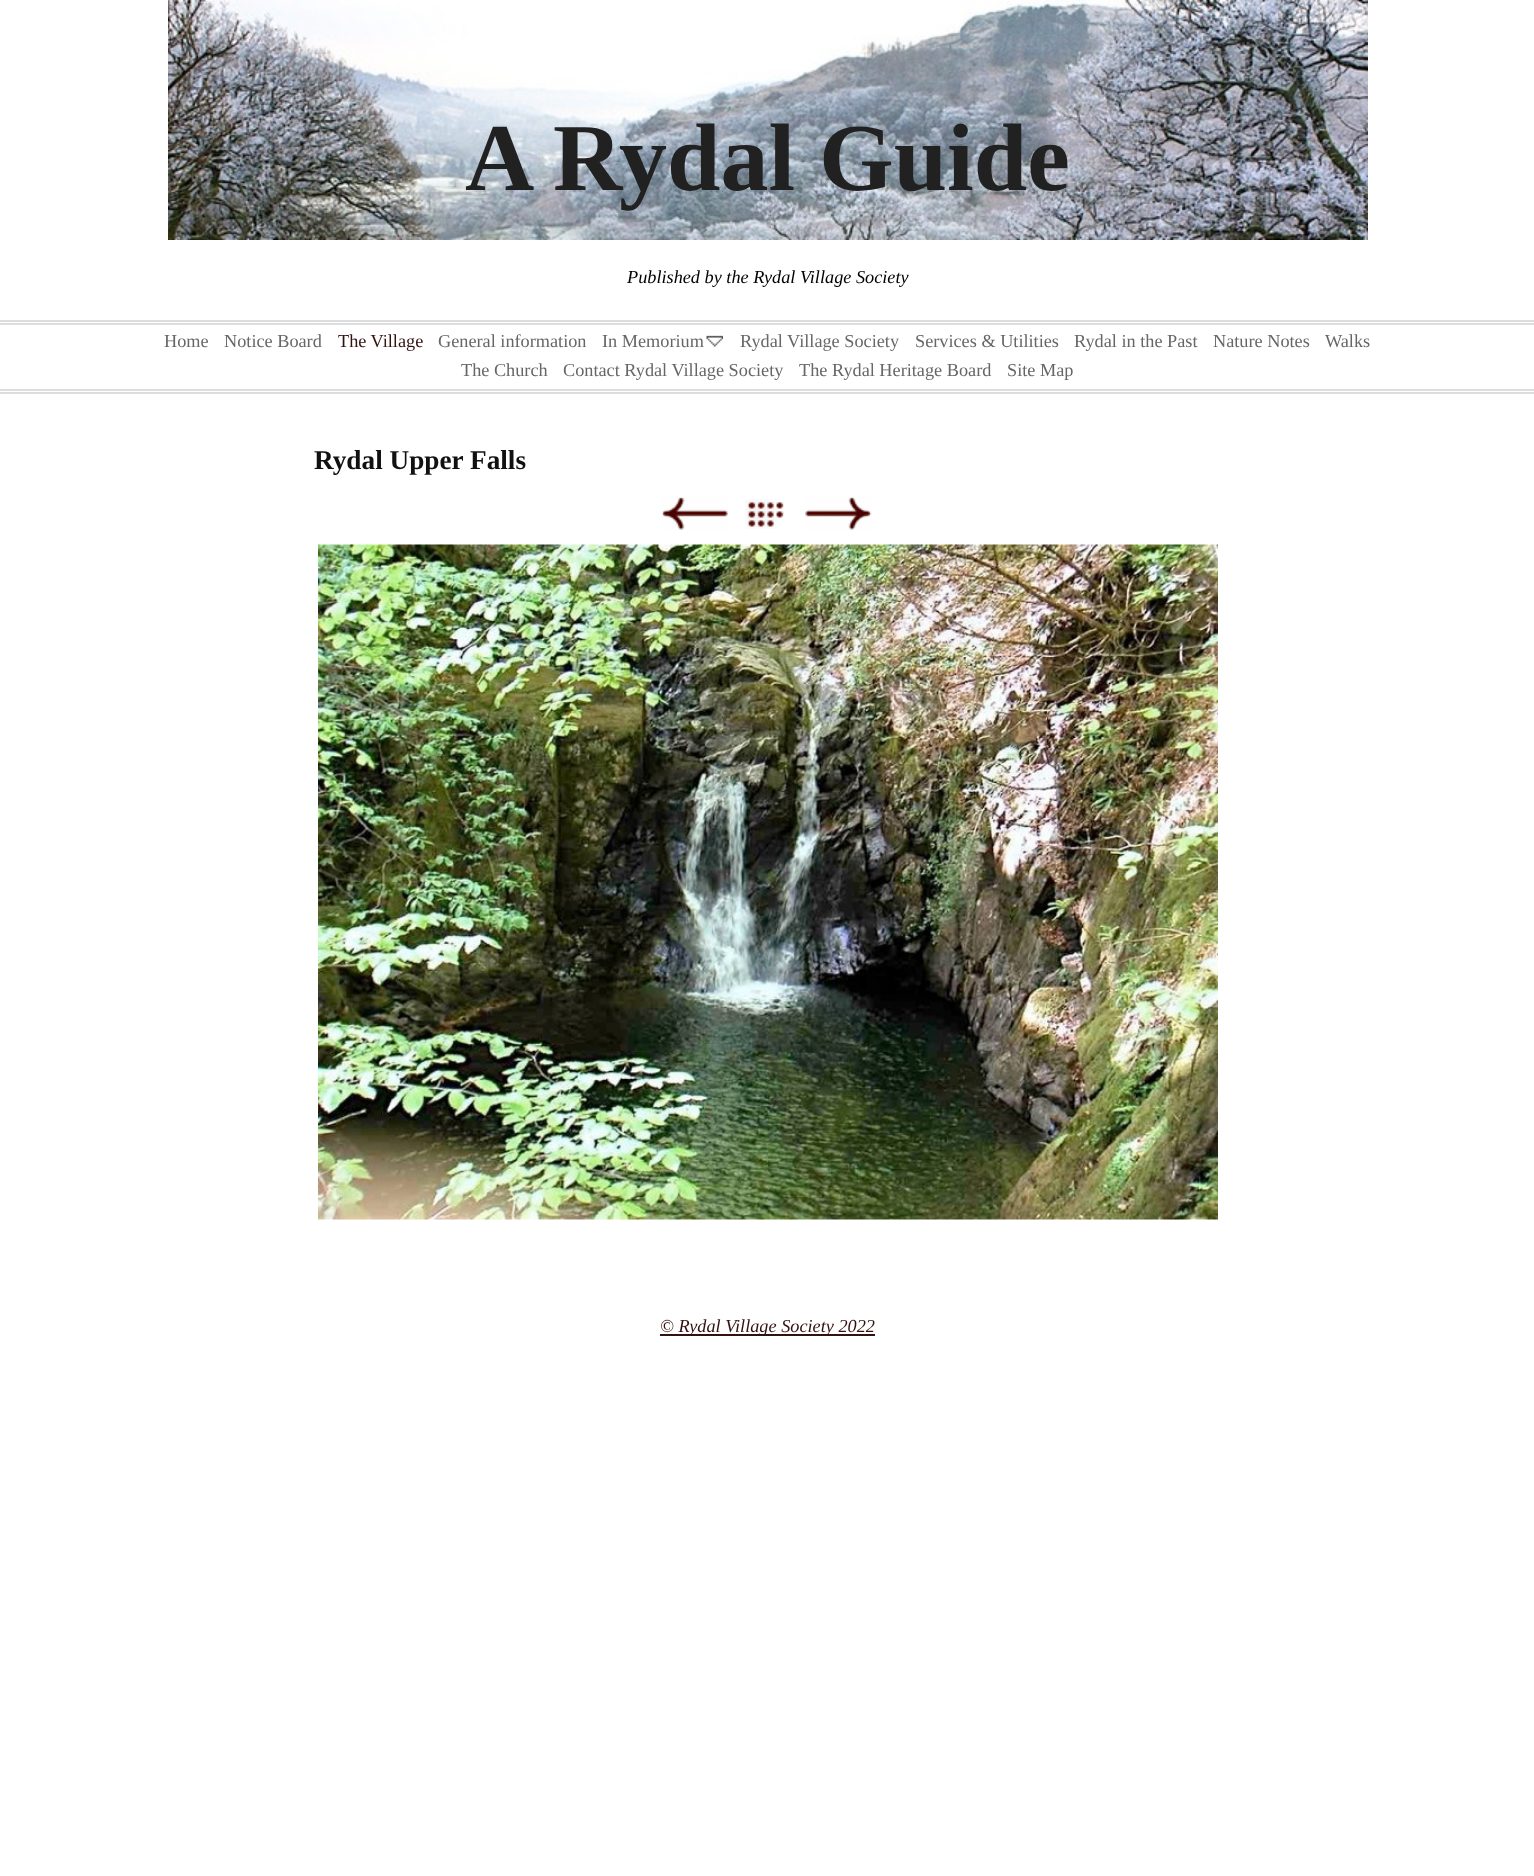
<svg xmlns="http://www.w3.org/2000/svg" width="1534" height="1876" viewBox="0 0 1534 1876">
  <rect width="100%" height="100%" fill="rgb(255,255,255)"/>
  <image x="168" y="0" width="1200" height="240" href="pic1.png"/>
  <text x="465" y="190" font-family="Liberation Serif" font-size="96" font-weight="bold" fill="rgb(33,33,33)">A Rydal Guide</text>
  <text x="627" y="283" font-family="Liberation Serif" font-size="18.25" font-style="italic" fill="rgb(0,0,0)">Published by the Rydal Village Society</text>
  <rect x="0" y="320" width="1534" height="2" fill="rgb(221,221,221)"/>
  <rect x="0" y="323" width="1534" height="2" fill="rgb(221,221,221)"/>
  <rect x="0" y="389" width="1534" height="2" fill="rgb(221,221,221)"/>
  <rect x="0" y="392" width="1534" height="2" fill="rgb(221,221,221)"/>
  <g font-family="Liberation Serif" font-size="18.25" fill="rgb(102,102,102)">
    <text x="164" y="347">Home</text>
    <text x="224" y="347">Notice Board</text>
  </g>
  <text x="338" y="347" font-family="Liberation Serif" font-size="18.25" fill="rgb(51,17,17)">The Village</text>
  <g font-family="Liberation Serif" font-size="18.25" fill="rgb(102,102,102)">
    <text x="438" y="347">General information</text>
    <text x="602" y="347">In Memorium</text>
  </g>
  <image x="706" y="335" width="17" height="12" href="pic2.png"/>
  <g font-family="Liberation Serif" font-size="18.25" fill="rgb(102,102,102)">
    <text x="740" y="347">Rydal Village Society</text>
    <text x="915" y="347">Services &amp; Utilities</text>
    <text x="1074" y="347">Rydal in the Past</text>
    <text x="1213" y="347">Nature Notes</text>
    <text x="1325" y="347">Walks</text>
    <text x="461" y="376">The Church</text>
    <text x="563" y="376">Contact Rydal Village Society</text>
    <text x="799" y="376">The Rydal Heritage Board</text>
    <text x="1007" y="376">Site Map</text>
  </g>
  <text x="314" y="469" font-family="Liberation Serif" font-size="27.25" font-weight="bold" fill="rgb(17,17,17)">Rydal Upper Falls</text>
  <image x="662" y="497" width="66" height="33" href="pic3.png"/>
  <image x="778" y="502" width="6" height="25" href="pic4.png"/>
  <image x="745" y="499" width="39" height="30" href="pic5.png"/>
  <image x="805" y="497" width="67" height="33" href="pic6.png"/>
  <image x="318" y="544" width="900" height="676" href="pic7.png"/>
  <rect x="660" y="1334" width="215" height="2" fill="rgb(51,17,17)"/>
  <text x="660" y="1332" font-family="Liberation Serif" font-size="18.25" font-style="italic" fill="rgb(51,17,17)">© Rydal Village Society 2022</text>
</svg>
